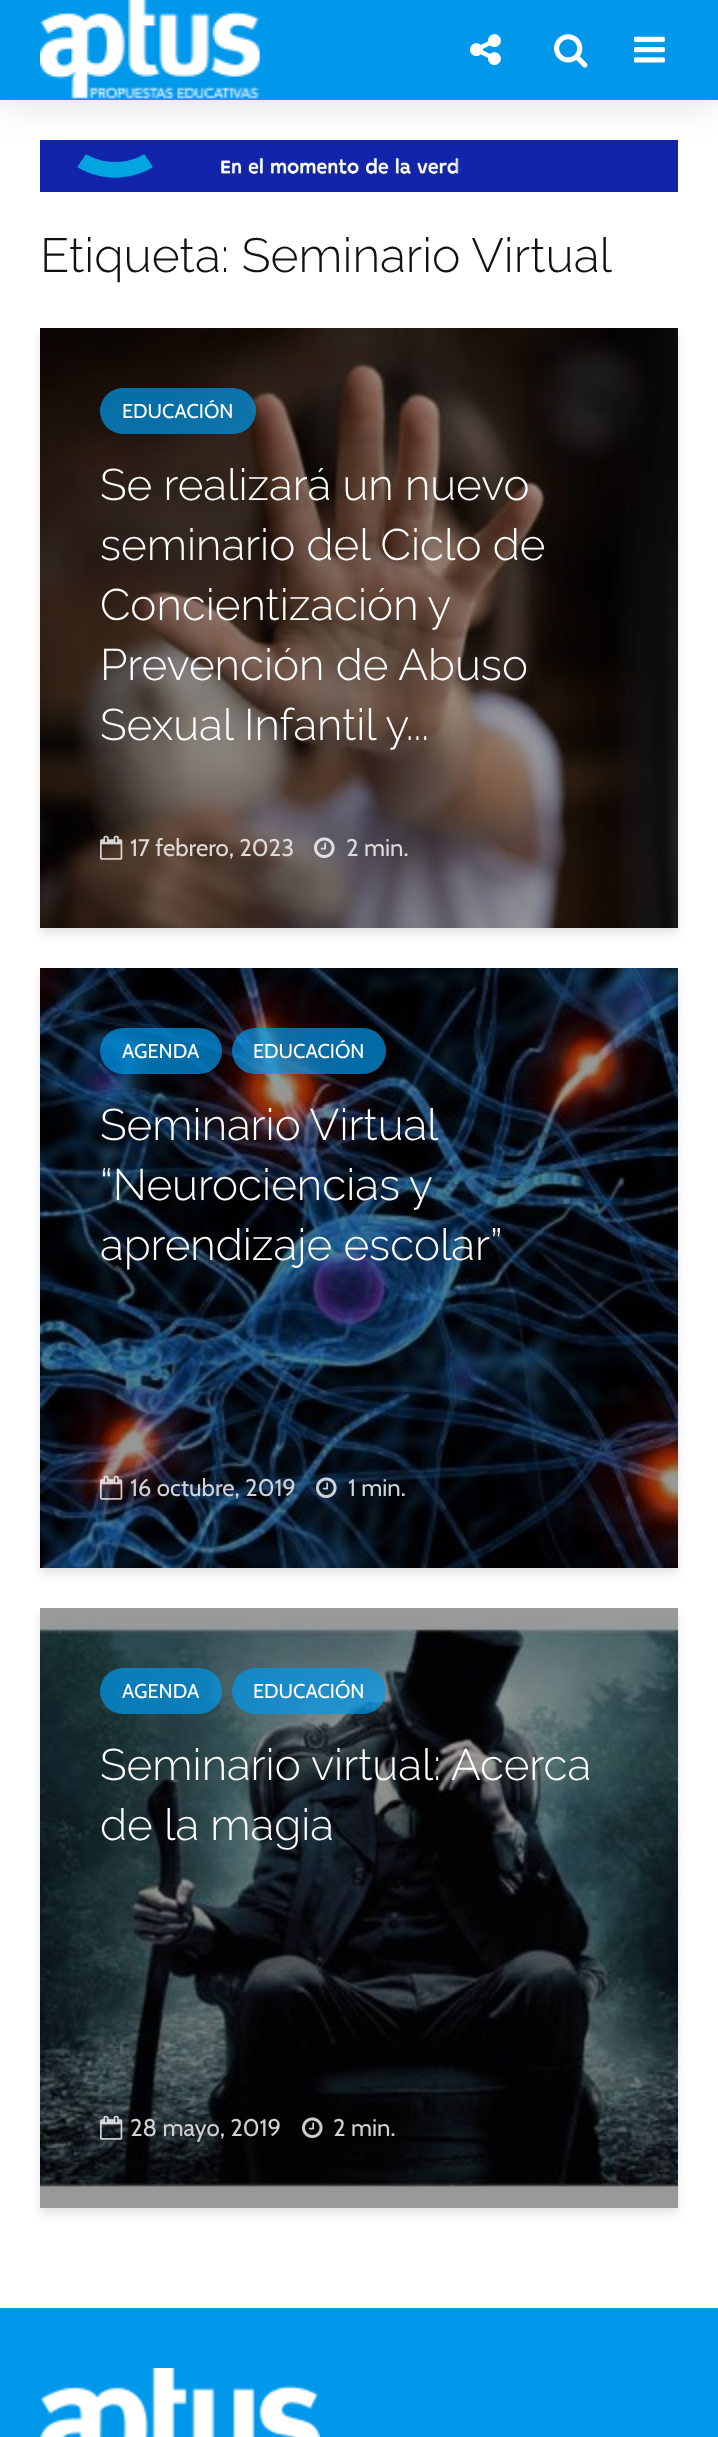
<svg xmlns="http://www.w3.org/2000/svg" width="718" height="2437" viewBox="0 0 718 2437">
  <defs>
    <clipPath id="clip1"><path d="M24 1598H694V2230H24ZM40 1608H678V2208H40Z" clip-rule="evenodd"/></clipPath>
  </defs>
  <rect width="100%" height="100%" fill="rgb(255,255,255)"/>
  <rect x="40" y="1608" width="638" height="600" fill="rgb(153,153,153)"/>
  <image x="40" y="140" width="638" height="52" href="pic5.png"/>
  <rect x="0" y="0" width="718" height="100" fill="rgba(0,0,0,0.15)" filter="blur(20px)"/>
  <rect x="0" y="0" width="718" height="100" fill="rgb(0,152,235)"/>
  <image x="40" y="0" width="220" height="99" href="pic1.png"/>
  <image x="470" y="34" width="31" height="32" href="pic2.png"/>
  <image x="554" y="34" width="34" height="34" href="pic3.png"/>
  <image x="634" y="36" width="31" height="27" href="pic4.png"/>
  <text x="40" y="272" font-family="Raleway" font-size="48" font-weight="300" fill="rgb(17,17,17)">Etiqueta: Seminario Virtual</text>
  <rect x="40" y="334" width="638" height="600" fill="rgba(0,1,1,0.1)" filter="blur(5px)"/>
  <image x="40" y="328" width="638" height="600" href="pic6.png"/>
  <rect x="100" y="388" width="156" height="46" rx="23" fill="rgba(0,152,235,0.7)"/>
  <text x="122" y="418" font-family="Cabin" font-size="20" fill="rgb(255,255,255)">EDUCACIÓN</text>
  <g font-family="Raleway" font-size="44" font-weight="300" fill="rgb(255,255,255)">
    <text>
      <tspan x="100" y="500">Se realizará un nuevo</tspan>
      <tspan x="100" y="560">seminario del Ciclo de</tspan>
      <tspan x="100" y="620" word-spacing="-1">Concientización y</tspan>
      <tspan x="100" y="680">Prevención de Abuso</tspan>
      <tspan x="100" y="740">Sexual Infantil y...</tspan>
    </text>
  </g>
  <image x="100" y="835" width="23" height="25" href="pic7.png"/>
  <text x="130" y="856" font-family="Cabin" font-size="24" fill="rgb(222,218,216)">17 febrero, 2023</text>
  <image x="314" y="837" width="21" height="21" href="pic8.png"/>
  <text x="346" y="856" font-family="Cabin" font-size="24" fill="rgb(222,218,216)">2 min.</text>
  <rect x="40" y="974" width="638" height="600" fill="rgba(0,1,1,0.1)" filter="blur(5px)"/>
  <image x="40" y="968" width="638" height="600" href="pic9.png"/>
  <rect x="100" y="1028" width="122" height="46" rx="23" fill="rgba(0,152,235,0.7)"/>
  <text x="122" y="1058" font-family="Cabin" font-size="20" fill="rgb(255,255,255)">AGENDA</text>
  <rect x="232" y="1028" width="154" height="46" rx="23" fill="rgba(0,152,235,0.7)"/>
  <text x="253" y="1058" font-family="Cabin" font-size="20" fill="rgb(255,255,255)">EDUCACIÓN</text>
  <g font-family="Raleway" font-size="44" font-weight="300" fill="rgb(255,255,255)">
    <text>
      <tspan x="100" y="1140" word-spacing="-1">Seminario Virtual</tspan>
      <tspan x="100" y="1200" word-spacing="-1">“Neurociencias y</tspan>
      <tspan x="100" y="1260">aprendizaje escolar”</tspan>
    </text>
  </g>
  <image x="100" y="1475" width="23" height="25" href="pic10.png"/>
  <text x="130" y="1496" font-family="Cabin" font-size="24" fill="rgb(207,210,214)">16 octubre, 2019</text>
  <image x="316" y="1477" width="21" height="21" href="pic11.png"/>
  <text x="348" y="1496" font-family="Cabin" font-size="24" fill="rgb(207,210,214)">1 min.</text>
  <g clip-path="url(#clip1)">
    <rect x="40" y="1614" width="638" height="600" fill="rgba(0,1,1,0.1)" filter="blur(5px)"/>
  </g>
  <image x="40" y="1619" width="638" height="574" href="pic12.png"/>
  <rect x="100" y="1668" width="122" height="46" rx="23" fill="rgba(0,152,235,0.7)"/>
  <text x="122" y="1698" font-family="Cabin" font-size="20" fill="rgb(255,255,255)">AGENDA</text>
  <rect x="232" y="1668" width="154" height="46" rx="23" fill="rgba(0,152,235,0.7)"/>
  <text x="253" y="1698" font-family="Cabin" font-size="20" fill="rgb(255,255,255)">EDUCACIÓN</text>
  <g font-family="Raleway" font-size="44" font-weight="300" fill="rgb(255,255,255)">
    <text>
      <tspan x="100" y="1780">Seminario virtual: Acerca</tspan>
      <tspan x="100" y="1840">de la magia</tspan>
    </text>
  </g>
  <image x="100" y="2115" width="23" height="25" href="pic13.png"/>
  <text x="130" y="2136" font-family="Cabin" font-size="24" fill="rgb(207,208,208)">28 mayo, 2019</text>
  <image x="302" y="2117" width="21" height="21" href="pic14.png"/>
  <text x="333" y="2136" font-family="Cabin" font-size="24" fill="rgb(207,208,208)">2 min.</text>
  <rect x="0" y="2308" width="718" height="129" fill="rgb(0,152,235)"/>
  <image x="40" y="2368" width="280" height="69" href="pic15.png"/>
</svg>
